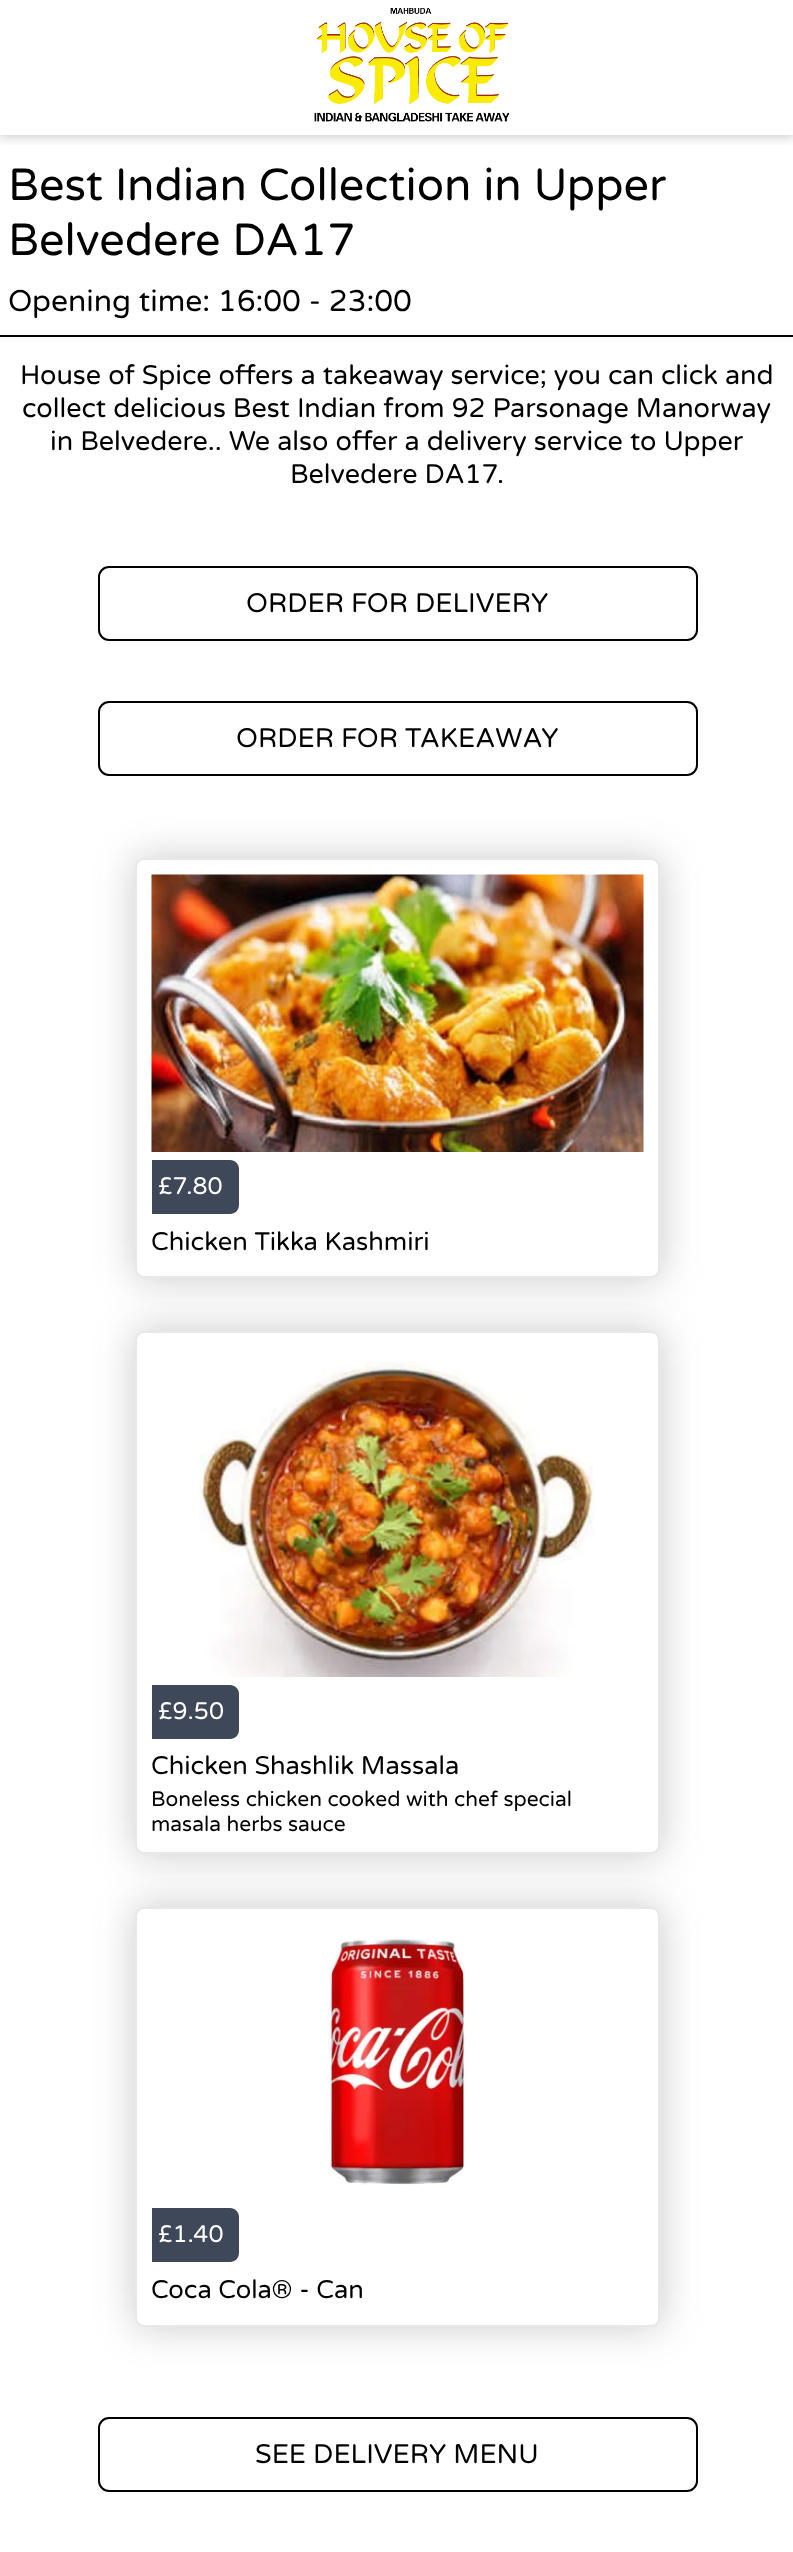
<svg xmlns="http://www.w3.org/2000/svg" width="793" height="2552" viewBox="0 0 793 2552">
  <defs>
    <clipPath id="clip1"><rect x="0" y="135" width="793" height="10"/></clipPath>
  </defs>
  <rect width="100%" height="100%" fill="rgb(255,255,255)"/>
  <g clip-path="url(#clip1)">
    <rect x="-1" y="-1" width="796" height="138" fill="rgba(53,53,53,0.25)" filter="blur(6px)"/>
  </g>
  <image x="314" y="8" width="196" height="114" href="pic1.png"/>
  <g font-family="Varela Round" font-size="45" fill="rgb(0,0,0)">
    <text>
      <tspan x="8" y="200">Best Indian Collection in Upper</tspan>
      <tspan x="8" y="255">Belvedere DA17</tspan>
    </text>
  </g>
  <rect x="0" y="335" width="793" height="2" fill="rgb(0,0,0)"/>
  <text x="8" y="311" font-family="Varela Round" font-size="30" fill="rgb(0,0,0)">Opening time: 16:00 - 23:00</text>
  <g font-family="Varela Round" font-size="27" fill="rgb(0,0,0)">
    <text x="20" y="384">House of Spice offers a takeaway service; you can click and</text>
    <text x="22" y="417">collect delicious Best Indian from 92 Parsonage Manorway</text>
    <text x="50" y="450">in Belvedere.. We also offer a delivery service to Upper</text>
    <text x="290" y="483">Belvedere DA17.</text>
  </g>
  <rect x="99" y="567" width="598" height="73" rx="10" fill="none" stroke="rgb(0,0,0)" stroke-width="2"/>
  <text x="246" y="612" font-family="Varela Round" font-size="27" fill="rgb(0,0,0)">ORDER FOR DELIVERY</text>
  <rect x="99" y="702" width="598" height="73" rx="10" fill="none" stroke="rgb(0,0,0)" stroke-width="2"/>
  <text x="236" y="747" font-family="Varela Round" font-size="27" fill="rgb(0,0,0)">ORDER FOR TAKEAWAY</text>
  <rect x="134" y="857" width="528" height="423" rx="11" fill="rgba(53,53,53,0.25)" filter="blur(19px)"/>
  <rect x="136" y="859" width="523" height="418" rx="8" fill="rgb(255,255,255)" stroke="rgb(232,232,232)" stroke-width="2"/>
  <image x="151" y="874" width="493" height="278" href="pic2.png"/>
  <path d="M152 1160H230C235 1160 239 1164 239 1169V1205C239 1210 235 1214 230 1214H152Z" fill="rgb(63,72,88)"/>
  <text x="158" y="1194" font-family="Varela Round" font-size="24" fill="rgb(255,255,255)">£7.80</text>
  <text x="151" y="1250" font-family="Varela Round" font-size="25.5" fill="rgb(0,0,0)">Chicken Tikka Kashmiri</text>
  <rect x="134" y="1329" width="528" height="527" rx="11" fill="rgba(53,53,53,0.25)" filter="blur(19px)"/>
  <rect x="136" y="1332" width="523" height="521" rx="8" fill="rgb(255,255,255)" stroke="rgb(232,232,232)" stroke-width="2"/>
  <image x="198" y="1361" width="397" height="316" href="pic3.png"/>
  <path d="M152 1685H230C235 1685 239 1689 239 1694V1730C239 1735 235 1739 230 1739H152Z" fill="rgb(63,72,88)"/>
  <text x="158" y="1719" font-family="Varela Round" font-size="24" fill="rgb(255,255,255)">£9.50</text>
  <text x="151" y="1774" font-family="Varela Round" font-size="25.5" fill="rgb(0,0,0)">Chicken Shashlik Massala</text>
  <g font-family="Varela Round" font-size="21" fill="rgb(0,0,0)">
    <text>
      <tspan x="151" y="1806">Boneless chicken cooked with chef special</tspan>
      <tspan x="151" y="1831">masala herbs sauce</tspan>
    </text>
  </g>
  <rect x="134" y="1905" width="528" height="423" rx="11" fill="rgba(53,53,53,0.25)" filter="blur(19px)"/>
  <rect x="136" y="1908" width="523" height="418" rx="8" fill="rgb(255,255,255)" stroke="rgb(232,232,232)" stroke-width="2"/>
  <image x="327" y="1938" width="142" height="247" href="pic4.png"/>
  <path d="M152 2208H230C235 2208 239 2212 239 2217V2253C239 2258 235 2262 230 2262H152Z" fill="rgb(63,72,88)"/>
  <text x="158" y="2242" font-family="Varela Round" font-size="24" fill="rgb(255,255,255)">£1.40</text>
  <text x="151" y="2298" font-family="Varela Round" font-size="25.5" fill="rgb(0,0,0)">Coca Cola® - Can</text>
  <rect x="99" y="2418" width="598" height="73" rx="10" fill="none" stroke="rgb(0,0,0)" stroke-width="2"/>
  <text x="255" y="2463" font-family="Varela Round" font-size="27" fill="rgb(0,0,0)">SEE DELIVERY MENU</text>
</svg>
